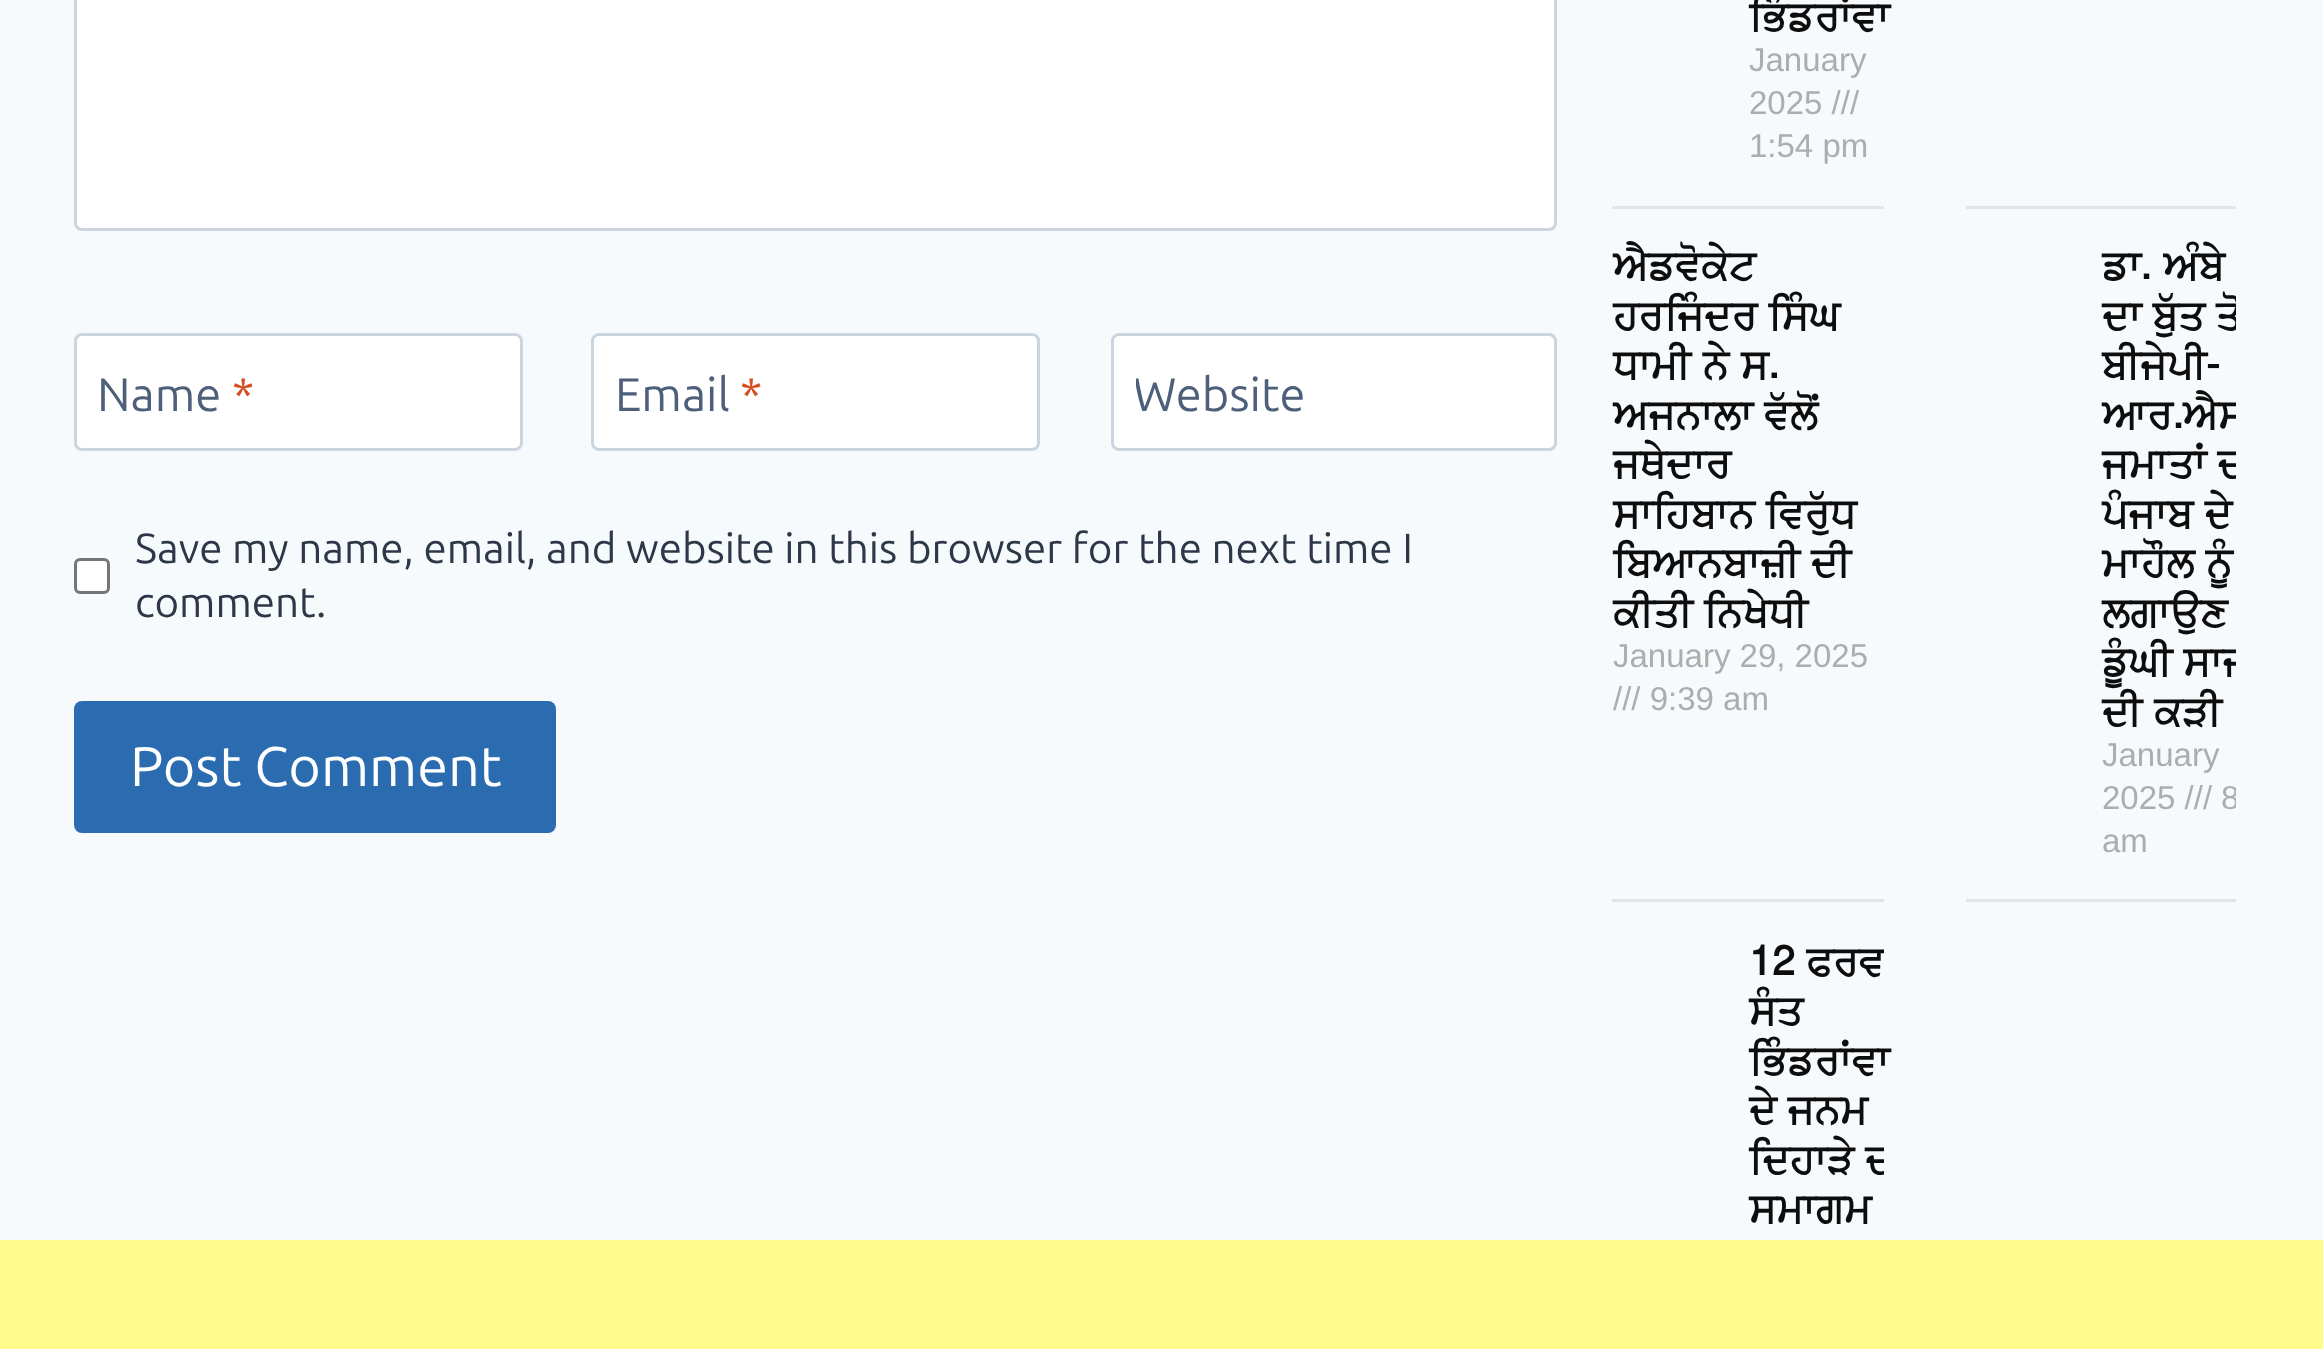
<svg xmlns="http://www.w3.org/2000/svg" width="2323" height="1349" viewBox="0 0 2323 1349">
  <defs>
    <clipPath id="clip1"><rect x="1136" y="363" width="170" height="80"/></clipPath>
    <clipPath id="clip2"><rect x="1612" y="242" width="272" height="657"/></clipPath>
    <clipPath id="clip3"><rect x="1966" y="242" width="270" height="657"/></clipPath>
    <clipPath id="clip4"><rect x="1612" y="935" width="272" height="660"/></clipPath>
  </defs>
  <rect width="100%" height="100%" fill="rgb(247,250,252)"/>
  <rect x="75.5" y="-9.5" width="1480" height="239" rx="6.5" fill="rgb(255,255,255)" stroke="rgb(203,213,224)" stroke-width="3"/>
  <rect x="75.5" y="334.5" width="446" height="115" rx="6.5" fill="rgb(255,255,255)" stroke="rgb(203,213,224)" stroke-width="3"/>
  <text x="97" y="411" font-family="Ubuntu" font-size="47" fill="rgb(77,95,122)">Name</text>
  <text x="232" y="411" font-family="Ubuntu" font-size="47" fill="rgb(213,78,33)">*</text>
  <rect x="592.5" y="334.5" width="446" height="115" rx="6.5" fill="rgb(255,255,255)" stroke="rgb(203,213,224)" stroke-width="3"/>
  <text x="615" y="411" font-family="Ubuntu" font-size="47" fill="rgb(77,95,122)">Email</text>
  <text x="740" y="411" font-family="Ubuntu" font-size="47" fill="rgb(213,78,33)">*</text>
  <rect x="1112.5" y="334.5" width="443" height="115" rx="6.5" fill="rgb(255,255,255)" stroke="rgb(203,213,224)" stroke-width="3"/>
  <g clip-path="url(#clip1)">
    <text x="1133" y="411" font-family="Ubuntu" font-size="47" fill="rgb(77,95,122)">Website</text>
  </g>
  <rect x="75.5" y="559.5" width="33" height="33" rx="4.5" fill="rgb(255,255,255)" stroke="rgb(118,118,118)" stroke-width="3"/>
  <g font-family="Ubuntu" font-size="42.1" fill="rgb(45,55,72)">
    <text>
      <tspan x="135" y="563">Save my name, email, and website in this browser for the next time I</tspan>
      <tspan x="135" y="617">comment.</tspan>
    </text>
  </g>
  <rect x="74" y="701" width="482" height="132" rx="8" fill="rgb(43,108,176)"/>
  <text x="130" y="786" font-family="Ubuntu" font-size="55.75" fill="rgb(255,255,255)">Post Comment</text>
  <rect x="1612" y="206" width="272" height="3" fill="rgb(228,228,228)"/>
  <text x="1749" y="30" font-family="FreeSans" font-size="41.25" font-weight="bold" fill="rgb(13,13,13)">ਭਿੰਡਰਾਂਵਾ</text>
  <g font-family="Liberation Sans" font-size="33" fill="rgb(173,173,173)">
    <text>
      <tspan x="1749" y="71">January</tspan>
      <tspan x="1749" y="114">2025 ///</tspan>
      <tspan x="1749" y="157">1:54 pm</tspan>
    </text>
  </g>
  <rect x="1966" y="206" width="270" height="3" fill="rgb(228,228,228)"/>
  <rect x="1612" y="899" width="272" height="3" fill="rgb(228,228,228)"/>
  <g font-family="FreeSans" font-size="41.25" font-weight="bold" fill="rgb(13,13,13)">
    <text>
      <tspan x="1613" y="279">ਐਡਵੋਕੇਟ</tspan>
      <tspan x="1613" y="329" word-spacing="1">ਹਰਜਿੰਦਰ ਸਿੰਘ</tspan>
      <tspan x="1613" y="378" word-spacing="2">ਧਾਮੀ ਨੇ ਸ.</tspan>
      <tspan x="1613" y="428" word-spacing="1">ਅਜਨਾਲਾ ਵੱਲੋਂ</tspan>
      <tspan x="1613" y="477">ਜਥੇਦਾਰ</tspan>
      <tspan x="1613" y="527" word-spacing="1">ਸਾਹਿਬਾਨ ਵਿਰੁੱਧ</tspan>
      <tspan x="1613" y="576" word-spacing="1">ਬਿਆਨਬਾਜ਼ੀ ਦੀ</tspan>
    </text>
  </g>
  <g clip-path="url(#clip2)">
    <text x="1613" y="626" word-spacing="1" font-family="FreeSans" font-size="41.25" font-weight="bold" fill="rgb(13,13,13)">ਕੀਤੀ ਨਿਖੇਧੀ</text>
  </g>
  <g font-family="Liberation Sans" font-size="33" fill="rgb(173,173,173)">
    <text>
      <tspan x="1613" y="667">January 29, 2025</tspan>
      <tspan x="1613" y="710">/// 9:39 am</tspan>
    </text>
  </g>
  <rect x="1966" y="899" width="270" height="3" fill="rgb(228,228,228)"/>
  <text x="2102" y="279" word-spacing="2" font-family="FreeSans" font-size="41.25" font-weight="bold" fill="rgb(13,13,13)">ਡਾ. ਅੰਬੇ</text>
  <g clip-path="url(#clip3)">
    <text x="2102" y="329" word-spacing="1" font-family="FreeSans" font-size="41.25" font-weight="bold" fill="rgb(13,13,13)">ਦਾ ਬੁੱਤ ਤੋ</text>
  </g>
  <text x="2102" y="378" font-family="FreeSans" font-size="41.25" font-weight="bold" fill="rgb(13,13,13)">ਬੀਜੇਪੀ-</text>
  <g clip-path="url(#clip3)">
    <g font-family="FreeSans" font-size="41.25" font-weight="bold" fill="rgb(13,13,13)">
      <text>
        <tspan x="2102" y="428">ਆਰ.ਐਸ</tspan>
        <tspan x="2102" y="477" word-spacing="1">ਜਮਾਤਾਂ ਦ</tspan>
      </text>
    </g>
  </g>
  <g font-family="FreeSans" font-size="41.25" font-weight="bold" fill="rgb(13,13,13)">
    <text>
      <tspan x="2102" y="527" word-spacing="1">ਪੰਜਾਬ ਦੇ</tspan>
      <tspan x="2102" y="576" word-spacing="1">ਮਾਹੌਲ ਨੂੰ</tspan>
      <tspan x="2102" y="626" word-spacing="1">ਲਗਾਉਣ</tspan>
    </text>
  </g>
  <g clip-path="url(#clip3)">
    <text x="2102" y="675" word-spacing="1" font-family="FreeSans" font-size="41.25" font-weight="bold" fill="rgb(13,13,13)">ਡੂੰਘੀ ਸਾਜ</text>
  </g>
  <text x="2102" y="725" word-spacing="2" font-family="FreeSans" font-size="41.25" font-weight="bold" fill="rgb(13,13,13)">ਦੀ ਕੜੀ</text>
  <g font-family="Liberation Sans" font-size="33" fill="rgb(173,173,173)">
    <text>
      <tspan x="2102" y="766">January</tspan>
      <tspan x="2102" y="809">2025 ///</tspan>
    </text>
  </g>
  <g clip-path="url(#clip3)">
    <text x="2221" y="809" font-family="Liberation Sans" font-size="33" fill="rgb(173,173,173)">8</text>
  </g>
  <text x="2102" y="852" font-family="Liberation Sans" font-size="33" fill="rgb(173,173,173)">am</text>
  <g clip-path="url(#clip4)">
    <text x="1749" y="975" word-spacing="1" font-family="FreeSans" font-size="41.25" font-weight="bold" fill="rgb(13,13,13)">12 ਫਰਵ</text>
  </g>
  <g font-family="FreeSans" font-size="41.25" font-weight="bold" fill="rgb(13,13,13)">
    <text>
      <tspan x="1749" y="1024">ਸੰਤ</tspan>
      <tspan x="1749" y="1074">ਭਿੰਡਰਾਂਵਾ</tspan>
      <tspan x="1749" y="1123" word-spacing="1">ਦੇ ਜਨਮ</tspan>
    </text>
  </g>
  <g clip-path="url(#clip4)">
    <text x="1749" y="1173" word-spacing="1" font-family="FreeSans" font-size="41.25" font-weight="bold" fill="rgb(13,13,13)">ਦਿਹਾੜੇ ਦ</text>
  </g>
  <text x="1749" y="1222" word-spacing="1" font-family="FreeSans" font-size="41.25" font-weight="bold" fill="rgb(13,13,13)">ਸਮਾਗਮ</text>
  <rect x="0" y="1240" width="2323" height="109" fill="rgb(255,251,139)"/>
</svg>
